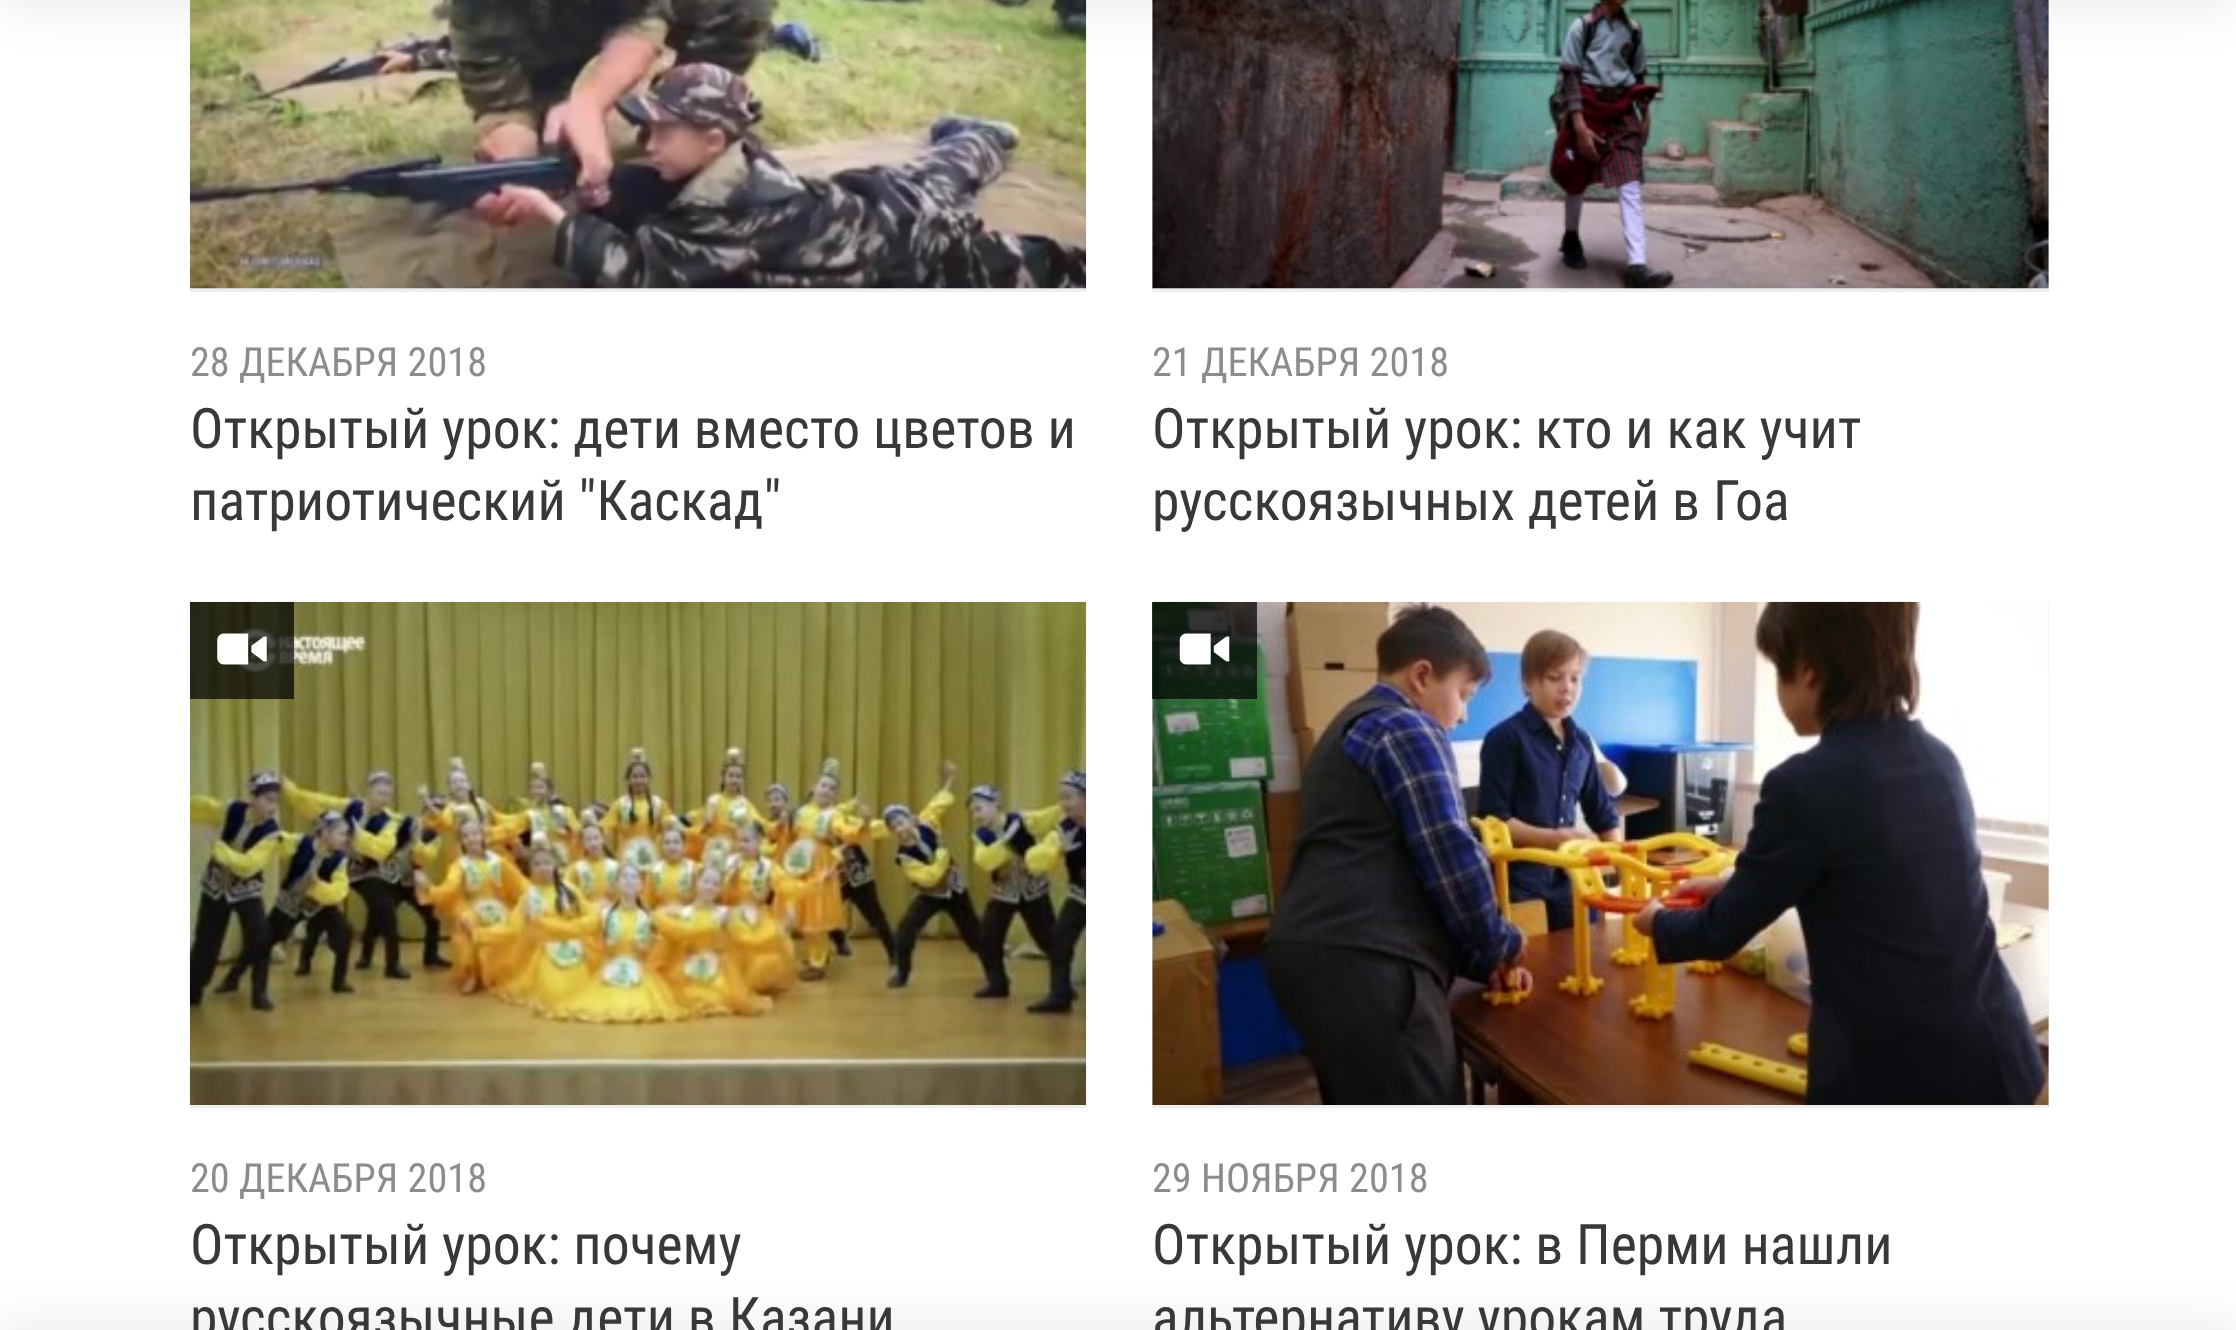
<svg xmlns="http://www.w3.org/2000/svg" width="2236" height="1330" viewBox="0 0 2236 1330">
  <rect width="100%" height="100%" fill="rgb(255,255,255)"/>
  <rect x="190" y="288" width="896" height="4" fill="rgb(237,237,237)"/>
  <image x="189" y="0" width="898" height="289" href="pic1.png"/>
  <rect x="1152" y="0" width="897" height="292" fill="rgb(237,237,237)"/>
  <image x="1152" y="0" width="897" height="289" href="pic2.png"/>
  <rect x="0" y="-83" width="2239" height="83" fill="rgba(0,0,0,0.1)" filter="blur(27.5px)"/>
  <rect x="0" y="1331" width="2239" height="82" fill="rgba(0,0,0,0.1)" filter="blur(27.5px)"/>
  <text x="190" y="376" font-family="Roboto Condensed" font-size="40.25" fill="rgb(140,140,140)">28 ДЕКАБРЯ 2018</text>
  <g font-family="Roboto Condensed" font-size="55.75" fill="rgb(56,56,56)">
    <text>
      <tspan x="190" y="448">Открытый урок: дети вместо цветов и</tspan>
      <tspan x="190" y="520">патриотический "Каскад"</tspan>
    </text>
  </g>
  <text x="1152" y="376" font-family="Roboto Condensed" font-size="40.25" fill="rgb(140,140,140)">21 ДЕКАБРЯ 2018</text>
  <g font-family="Roboto Condensed" font-size="55.75" fill="rgb(56,56,56)">
    <text>
      <tspan x="1152" y="448">Открытый урок: кто и как учит</tspan>
      <tspan x="1152" y="520">русскоязычных детей в Гоа</tspan>
    </text>
  </g>
  <rect x="190" y="1105" width="896" height="3" fill="rgb(237,237,237)"/>
  <image x="189" y="601" width="898" height="504" href="pic3.png"/>
  <rect x="190" y="602" width="104" height="97" fill="rgba(0,0,0,0.7)"/>
  <image x="217" y="633" width="50" height="32" href="pic4.png"/>
  <text x="190" y="1192" font-family="Roboto Condensed" font-size="40.25" fill="rgb(140,140,140)">20 ДЕКАБРЯ 2018</text>
  <g font-family="Roboto Condensed" font-size="55.75" fill="rgb(56,56,56)">
    <text>
      <tspan x="190" y="1264">Открытый урок: почему</tspan>
      <tspan x="190" y="1337">русскоязычные дети в Казани</tspan>
    </text>
  </g>
  <rect x="1152" y="602" width="897" height="506" fill="rgb(237,237,237)"/>
  <image x="1152" y="601" width="897" height="504" href="pic5.png"/>
  <rect x="1152" y="602" width="105" height="97" fill="rgba(0,0,0,0.7)"/>
  <image x="1179" y="633" width="51" height="32" href="pic6.png"/>
  <text x="1152" y="1192" font-family="Roboto Condensed" font-size="40.25" fill="rgb(140,140,140)">29 НОЯБРЯ 2018</text>
  <g font-family="Roboto Condensed" font-size="55.75" fill="rgb(56,56,56)">
    <text>
      <tspan x="1152" y="1264">Открытый урок: в Перми нашли</tspan>
      <tspan x="1152" y="1337">альтернативу урокам труда</tspan>
    </text>
  </g>
</svg>
